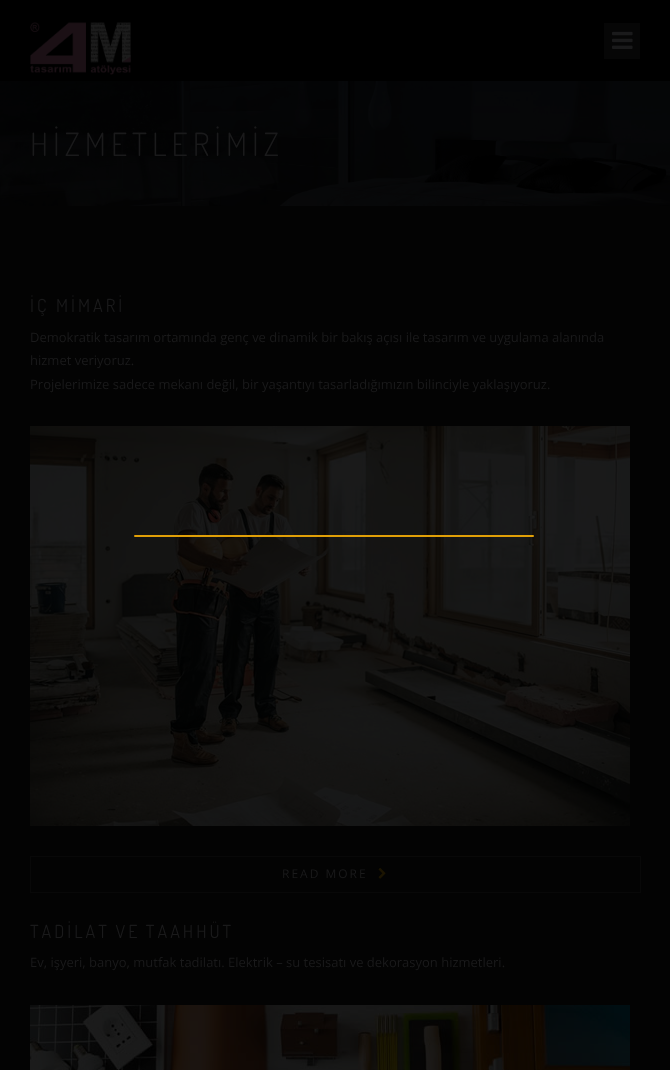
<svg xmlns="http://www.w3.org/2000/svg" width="670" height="1070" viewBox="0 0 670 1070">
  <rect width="100%" height="100%" fill="rgb(0,0,0)"/>
  <image x="30" y="22" width="101" height="53" href="pic1.png"/>
  <rect x="604" y="23" width="36" height="36" fill="rgb(6,6,6)"/>
  <image x="612" y="31" width="21" height="18" href="pic2.png"/>
  <image x="0" y="81" width="670" height="125" href="pic3.png"/>
  <text x="30" y="156" font-family="Dosis" font-size="32" font-weight="300" letter-spacing="5" fill="rgb(26,26,27)">HİZMETLERİMİZ</text>
  <rect x="0" y="206" width="670" height="864" fill="rgb(3,3,3)"/>
  <text x="30" y="312" font-family="Dosis" font-size="18" letter-spacing="3" fill="rgb(26,26,27)">İÇ MİMARİ</text>
  <g font-family="Open Sans" font-size="13" fill="rgb(26,26,27)">
    <text>
      <tspan x="30" y="342">Demokratik tasarım ortamında genç ve dinamik bir bakış açısı ile tasarım ve uygulama alanında</tspan>
      <tspan x="30" y="365">hizmet veriyoruz.</tspan>
      <tspan x="30" y="389">Projelerimize sadece mekanı değil, bir yaşantıyı tasarladığımızın bilinciyle yaklaşıyoruz.</tspan>
    </text>
  </g>
  <image x="30" y="426" width="600" height="400" href="pic4.png"/>
  <rect x="30.5" y="856.5" width="610" height="36" fill="none" stroke="rgb(8,8,8)"/>
  <text x="282" y="878" font-family="Open Sans" font-size="12" letter-spacing="2" fill="rgb(26,26,27)">READ MORE</text>
  <image x="378" y="867" width="8" height="12" href="pic5.png"/>
  <text x="30" y="938" word-spacing="-1" font-family="Dosis" font-size="18" letter-spacing="3" fill="rgb(26,26,27)">TADİLAT VE TAAHHÜT</text>
  <text x="30" y="967" font-family="Open Sans" font-size="13" fill="rgb(26,26,27)">Ev, işyeri, banyo, mutfak tadilatı. Elektrik – su tesisatı ve dekorasyon hizmetleri.</text>
  <image x="30" y="1005" width="600" height="65" href="pic6.png"/>
  <rect x="134" y="535" width="400" height="2" rx="1" fill="rgba(17,17,17,0.89)"/>
  <rect x="134" y="535" width="400" height="2" rx="1" fill="rgba(250,178,7,0.89)"/>
</svg>
